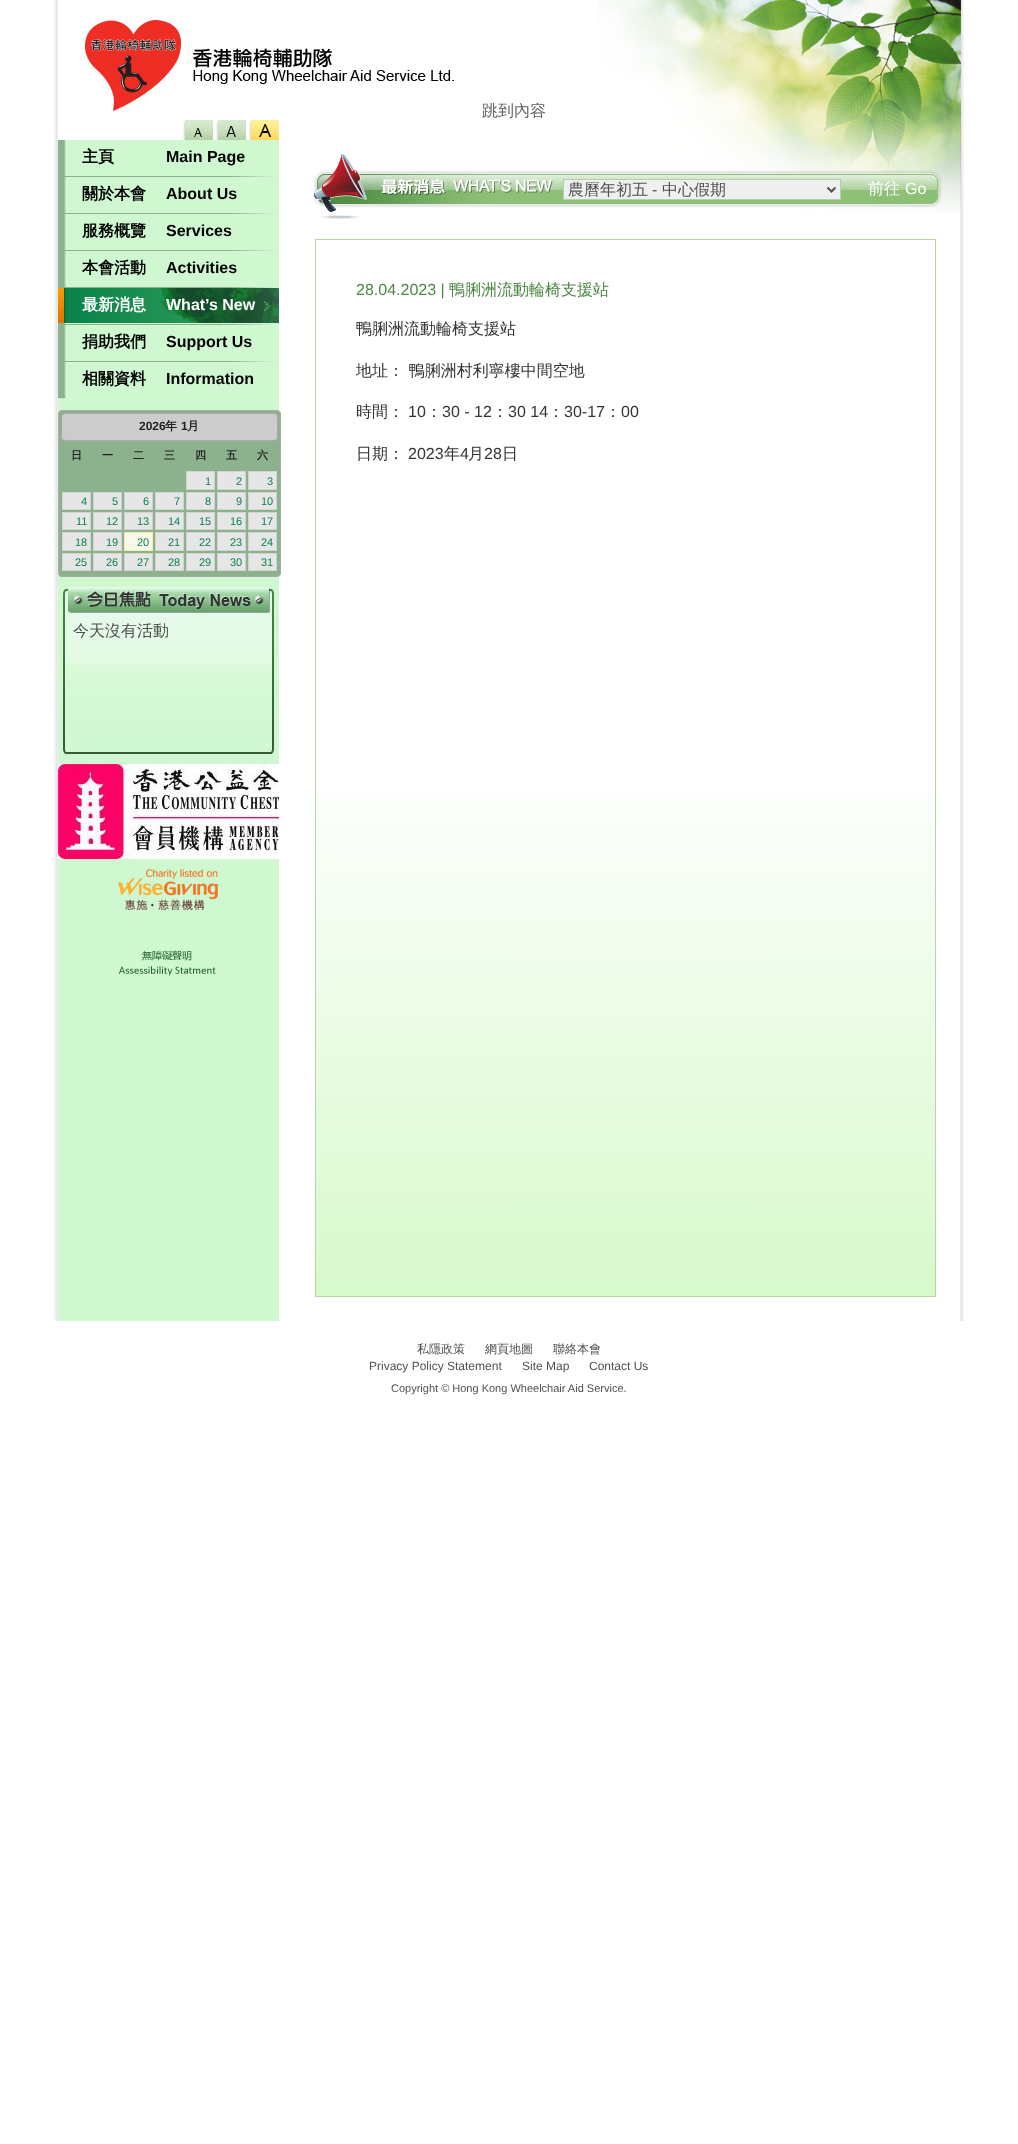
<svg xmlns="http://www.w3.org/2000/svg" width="1018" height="2144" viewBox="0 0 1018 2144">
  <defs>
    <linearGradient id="g1" gradientUnits="userSpaceOnUse" x1="626" y1="1296" x2="626" y2="240"><stop offset="0" stop-color="rgb(215,249,203)"/><stop offset="0.5" stop-color="rgb(255,255,255)"/></linearGradient>
  </defs>
  <rect width="100%" height="100%" fill="rgb(255,255,255)"/>
  <image x="54" y="0" width="910" height="1321" href="pic1.png"/>
  <image x="597" y="0" width="364" height="212" href="pic2.png"/>
  <image x="85" y="20" width="369" height="91" href="pic3.png"/>
  <text x="482" y="116" font-family="WenQuanYi Zen Hei" font-size="16" font-weight="500" fill="rgb(95,95,95)">跳到內容</text>
  <image x="183" y="120" width="30" height="20" href="pic4.png"/>
  <image x="216" y="120" width="30" height="20" href="pic5.png"/>
  <image x="249" y="120" width="30" height="20" href="pic6.png"/>
  <rect x="58" y="140" width="221" height="1181" fill="rgb(207,248,209)"/>
  <image x="58" y="141" width="215" height="258" href="pic7.png"/>
  <image x="58" y="140" width="8" height="2" href="pic8.png"/>
  <text x="82" y="162" font-family="WenQuanYi Zen Hei" font-size="16" font-weight="bold" fill="rgb(0,0,0)">主頁</text>
  <text x="166" y="162" font-family="Liberation Sans" font-size="16" font-weight="bold" fill="rgb(0,0,0)">Main Page</text>
  <image x="58" y="177" width="211" height="1" href="pic9.png"/>
  <text x="82" y="199" font-family="WenQuanYi Zen Hei" font-size="16" font-weight="bold" fill="rgb(0,0,0)">關於本會</text>
  <text x="166" y="199" font-family="Liberation Sans" font-size="16" font-weight="bold" fill="rgb(0,0,0)">About Us</text>
  <image x="58" y="214" width="211" height="1" href="pic9.png"/>
  <text x="82" y="236" font-family="WenQuanYi Zen Hei" font-size="16" font-weight="bold" fill="rgb(0,0,0)">服務概覽</text>
  <text x="166" y="236" font-family="Liberation Sans" font-size="16" font-weight="bold" fill="rgb(0,0,0)">Services</text>
  <image x="58" y="251" width="211" height="1" href="pic9.png"/>
  <text x="82" y="273" font-family="WenQuanYi Zen Hei" font-size="16" font-weight="bold" fill="rgb(0,0,0)">本會活動</text>
  <text x="166" y="273" font-family="Liberation Sans" font-size="16" font-weight="bold" fill="rgb(0,0,0)">Activities</text>
  <image x="58" y="288" width="221" height="35" href="pic10.png"/>
  <text x="82" y="310" font-family="WenQuanYi Zen Hei" font-size="16" font-weight="bold" fill="rgb(255,255,255)">最新消息</text>
  <text x="166" y="310" font-family="Liberation Sans" font-size="16" font-weight="bold" fill="rgb(255,255,255)">What’s New</text>
  <image x="58" y="325" width="211" height="1" href="pic9.png"/>
  <text x="82" y="347" font-family="WenQuanYi Zen Hei" font-size="16" font-weight="bold" fill="rgb(0,0,0)">捐助我們</text>
  <text x="166" y="347" font-family="Liberation Sans" font-size="16" font-weight="bold" fill="rgb(0,0,0)">Support Us</text>
  <image x="58" y="362" width="211" height="35" href="pic11.png"/>
  <text x="82" y="384" font-family="WenQuanYi Zen Hei" font-size="16" font-weight="bold" fill="rgb(0,0,0)">相關資料</text>
  <text x="166" y="384" font-family="Liberation Sans" font-size="16" font-weight="bold" fill="rgb(0,0,0)">Information</text>
  <rect x="58.5" y="410.5" width="222" height="166" rx="3.5" fill="rgb(139,178,141)" stroke="rgb(170,170,170)"/>
  <rect x="61.5" y="413.5" width="216" height="27" rx="3.5" fill="rgb(204,204,204)" stroke="rgb(170,170,170)"/>
  <text x="139" y="430" font-family="Liberation Sans" font-size="12" font-weight="bold" fill="rgb(34,34,34)">2026</text>
  <text x="165" y="430" font-family="WenQuanYi Zen Hei" font-size="12" font-weight="bold" fill="rgb(34,34,34)">年</text>
  <text x="181" y="430" font-family="Liberation Sans" font-size="12" font-weight="bold" fill="rgb(34,34,34)">1</text>
  <text x="187" y="430" font-family="WenQuanYi Zen Hei" font-size="12" font-weight="bold" fill="rgb(34,34,34)">月</text>
  <g font-family="WenQuanYi Zen Hei" font-size="11" font-weight="bold" fill="rgb(34,34,34)">
    <text x="71" y="459">日</text>
    <text x="102" y="459">一</text>
    <text x="133" y="459">二</text>
    <text x="164" y="459">三</text>
    <text x="195" y="459">四</text>
    <text x="226" y="459">五</text>
    <text x="257" y="459">六</text>
  </g>
  <rect x="186.5" y="471.5" width="28" height="18" fill="rgb(230,230,230)" stroke="rgb(211,211,211)"/>
  <text x="205" y="485" font-family="Liberation Sans" font-size="11" fill="rgb(11,131,74)">1</text>
  <rect x="217.5" y="471.5" width="28" height="18" fill="rgb(230,230,230)" stroke="rgb(211,211,211)"/>
  <text x="236" y="485" font-family="Liberation Sans" font-size="11" fill="rgb(11,131,74)">2</text>
  <rect x="248.5" y="471.5" width="28" height="18" fill="rgb(230,230,230)" stroke="rgb(211,211,211)"/>
  <text x="267" y="485" font-family="Liberation Sans" font-size="11" fill="rgb(11,131,74)">3</text>
  <rect x="62.5" y="492.5" width="28" height="17" fill="rgb(230,230,230)" stroke="rgb(211,211,211)"/>
  <text x="81" y="505" font-family="Liberation Sans" font-size="11" fill="rgb(11,131,74)">4</text>
  <rect x="93.5" y="492.5" width="28" height="17" fill="rgb(230,230,230)" stroke="rgb(211,211,211)"/>
  <text x="112" y="505" font-family="Liberation Sans" font-size="11" fill="rgb(11,131,74)">5</text>
  <rect x="124.5" y="492.5" width="28" height="17" fill="rgb(230,230,230)" stroke="rgb(211,211,211)"/>
  <text x="143" y="505" font-family="Liberation Sans" font-size="11" fill="rgb(11,131,74)">6</text>
  <rect x="155.5" y="492.5" width="28" height="17" fill="rgb(230,230,230)" stroke="rgb(211,211,211)"/>
  <text x="174" y="505" font-family="Liberation Sans" font-size="11" fill="rgb(11,131,74)">7</text>
  <rect x="186.5" y="492.5" width="28" height="17" fill="rgb(230,230,230)" stroke="rgb(211,211,211)"/>
  <text x="205" y="505" font-family="Liberation Sans" font-size="11" fill="rgb(11,131,74)">8</text>
  <rect x="217.5" y="492.5" width="28" height="17" fill="rgb(230,230,230)" stroke="rgb(211,211,211)"/>
  <text x="236" y="505" font-family="Liberation Sans" font-size="11" fill="rgb(11,131,74)">9</text>
  <rect x="248.5" y="492.5" width="28" height="17" fill="rgb(230,230,230)" stroke="rgb(211,211,211)"/>
  <text x="261" y="505" font-family="Liberation Sans" font-size="11" fill="rgb(11,131,74)">10</text>
  <rect x="62.5" y="512.5" width="28" height="17" fill="rgb(230,230,230)" stroke="rgb(211,211,211)"/>
  <text x="76" y="525" font-family="Liberation Sans" font-size="11" fill="rgb(11,131,74)">11</text>
  <rect x="93.5" y="512.5" width="28" height="17" fill="rgb(230,230,230)" stroke="rgb(211,211,211)"/>
  <text x="106" y="525" font-family="Liberation Sans" font-size="11" fill="rgb(11,131,74)">12</text>
  <rect x="124.5" y="512.5" width="28" height="17" fill="rgb(230,230,230)" stroke="rgb(211,211,211)"/>
  <text x="137" y="525" font-family="Liberation Sans" font-size="11" fill="rgb(11,131,74)">13</text>
  <rect x="155.5" y="512.5" width="28" height="17" fill="rgb(230,230,230)" stroke="rgb(211,211,211)"/>
  <text x="168" y="525" font-family="Liberation Sans" font-size="11" fill="rgb(11,131,74)">14</text>
  <rect x="186.5" y="512.5" width="28" height="17" fill="rgb(230,230,230)" stroke="rgb(211,211,211)"/>
  <text x="199" y="525" font-family="Liberation Sans" font-size="11" fill="rgb(11,131,74)">15</text>
  <rect x="217.5" y="512.5" width="28" height="17" fill="rgb(230,230,230)" stroke="rgb(211,211,211)"/>
  <text x="230" y="525" font-family="Liberation Sans" font-size="11" fill="rgb(11,131,74)">16</text>
  <rect x="248.5" y="512.5" width="28" height="17" fill="rgb(230,230,230)" stroke="rgb(211,211,211)"/>
  <text x="261" y="525" font-family="Liberation Sans" font-size="11" fill="rgb(11,131,74)">17</text>
  <rect x="62.5" y="532.5" width="28" height="18" fill="rgb(230,230,230)" stroke="rgb(211,211,211)"/>
  <text x="75" y="546" font-family="Liberation Sans" font-size="11" fill="rgb(11,131,74)">18</text>
  <rect x="93.5" y="532.5" width="28" height="18" fill="rgb(230,230,230)" stroke="rgb(211,211,211)"/>
  <text x="106" y="546" font-family="Liberation Sans" font-size="11" fill="rgb(11,131,74)">19</text>
  <rect x="124.5" y="532.5" width="28" height="18" fill="rgb(251,249,238)" stroke="rgb(252,239,161)"/>
  <text x="137" y="546" font-family="Liberation Sans" font-size="11" fill="rgb(11,131,74)">20</text>
  <rect x="155.5" y="532.5" width="28" height="18" fill="rgb(230,230,230)" stroke="rgb(211,211,211)"/>
  <text x="168" y="546" font-family="Liberation Sans" font-size="11" fill="rgb(11,131,74)">21</text>
  <rect x="186.5" y="532.5" width="28" height="18" fill="rgb(230,230,230)" stroke="rgb(211,211,211)"/>
  <text x="199" y="546" font-family="Liberation Sans" font-size="11" fill="rgb(11,131,74)">22</text>
  <rect x="217.5" y="532.5" width="28" height="18" fill="rgb(230,230,230)" stroke="rgb(211,211,211)"/>
  <text x="230" y="546" font-family="Liberation Sans" font-size="11" fill="rgb(11,131,74)">23</text>
  <rect x="248.5" y="532.5" width="28" height="18" fill="rgb(230,230,230)" stroke="rgb(211,211,211)"/>
  <text x="261" y="546" font-family="Liberation Sans" font-size="11" fill="rgb(11,131,74)">24</text>
  <rect x="62.5" y="553.5" width="28" height="17" fill="rgb(230,230,230)" stroke="rgb(211,211,211)"/>
  <text x="75" y="566" font-family="Liberation Sans" font-size="11" fill="rgb(11,131,74)">25</text>
  <rect x="93.5" y="553.5" width="28" height="17" fill="rgb(230,230,230)" stroke="rgb(211,211,211)"/>
  <text x="106" y="566" font-family="Liberation Sans" font-size="11" fill="rgb(11,131,74)">26</text>
  <rect x="124.5" y="553.5" width="28" height="17" fill="rgb(230,230,230)" stroke="rgb(211,211,211)"/>
  <text x="137" y="566" font-family="Liberation Sans" font-size="11" fill="rgb(11,131,74)">27</text>
  <rect x="155.5" y="553.5" width="28" height="17" fill="rgb(230,230,230)" stroke="rgb(211,211,211)"/>
  <text x="168" y="566" font-family="Liberation Sans" font-size="11" fill="rgb(11,131,74)">28</text>
  <rect x="186.5" y="553.5" width="28" height="17" fill="rgb(230,230,230)" stroke="rgb(211,211,211)"/>
  <text x="199" y="566" font-family="Liberation Sans" font-size="11" fill="rgb(11,131,74)">29</text>
  <rect x="217.5" y="553.5" width="28" height="17" fill="rgb(230,230,230)" stroke="rgb(211,211,211)"/>
  <text x="230" y="566" font-family="Liberation Sans" font-size="11" fill="rgb(11,131,74)">30</text>
  <rect x="248.5" y="553.5" width="28" height="17" fill="rgb(230,230,230)" stroke="rgb(211,211,211)"/>
  <text x="261" y="566" font-family="Liberation Sans" font-size="11" fill="rgb(11,131,74)">31</text>
  <image x="63" y="587" width="211" height="167" href="pic12.png"/>
  <text x="73" y="636" font-family="WenQuanYi Zen Hei" font-size="16" font-weight="500" fill="rgb(80,80,80)">今天沒有活動</text>
  <image x="58" y="764" width="221" height="95" href="pic13.png"/>
  <image x="118" y="869" width="100" height="41" href="pic14.png"/>
  <image x="119" y="950" width="97" height="26" href="pic15.png"/>
  <image x="313" y="170" width="629" height="38" href="pic16.png"/>
  <image x="314" y="154" width="239" height="65" href="pic17.png"/>
  <rect x="563.5" y="179.5" width="277" height="20" fill="rgb(239,239,239)" stroke="rgb(182,206,172)"/>
  <path d="M827.5 187.5L831.5 191.5L835.5 187.5" fill="none" stroke="rgb(80,80,80)" stroke-width="2"/>
  <text x="568" y="195" font-family="WenQuanYi Zen Hei" font-size="16" font-weight="500" fill="rgb(80,80,80)">農曆年初五</text>
  <text x="652" y="195" font-family="Liberation Sans" font-size="16" fill="rgb(80,80,80)">-</text>
  <text x="662" y="195" font-family="WenQuanYi Zen Hei" font-size="16" font-weight="500" fill="rgb(80,80,80)">中心假期</text>
  <text x="868" y="194" font-family="WenQuanYi Zen Hei" font-size="16" font-weight="500" fill="rgb(255,255,255)">前往</text>
  <text x="905" y="194" font-family="Liberation Sans" font-size="16" fill="rgb(255,255,255)">Go</text>
  <rect x="316" y="793" width="619" height="503" fill="url(#g1)"/>
  <rect x="315.5" y="239.5" width="620" height="1057" fill="none" stroke="rgb(177,216,164)"/>
  <text x="356" y="295" font-family="Liberation Sans" font-size="16" fill="rgb(74,136,64)">28.04.2023 |</text>
  <text x="449" y="295" font-family="WenQuanYi Zen Hei" font-size="16" font-weight="500" fill="rgb(74,136,64)">鴨脷洲流動輪椅支援站</text>
  <g font-family="WenQuanYi Zen Hei" font-size="16" font-weight="500" fill="rgb(51,51,51)">
    <text x="356" y="334">鴨脷洲流動輪椅支援站</text>
    <text x="356" y="376">地址： 鴨脷洲村利寧樓中間空地</text>
    <text x="356" y="417">時間：</text>
  </g>
  <text x="408" y="417" font-family="Liberation Sans" font-size="16" fill="rgb(51,51,51)">10</text>
  <text x="426" y="417" font-family="WenQuanYi Zen Hei" font-size="16" font-weight="500" fill="rgb(51,51,51)">：</text>
  <text x="442" y="417" font-family="Liberation Sans" font-size="16" fill="rgb(51,51,51)">30 - 12</text>
  <text x="492" y="417" font-family="WenQuanYi Zen Hei" font-size="16" font-weight="500" fill="rgb(51,51,51)">：</text>
  <text x="508" y="417" font-family="Liberation Sans" font-size="16" fill="rgb(51,51,51)">30 14</text>
  <text x="548" y="417" font-family="WenQuanYi Zen Hei" font-size="16" font-weight="500" fill="rgb(51,51,51)">：</text>
  <text x="564" y="417" font-family="Liberation Sans" font-size="16" fill="rgb(51,51,51)">30-17</text>
  <text x="605" y="417" font-family="WenQuanYi Zen Hei" font-size="16" font-weight="500" fill="rgb(51,51,51)">：</text>
  <text x="621" y="417" font-family="Liberation Sans" font-size="16" fill="rgb(51,51,51)">00</text>
  <text x="356" y="459" font-family="WenQuanYi Zen Hei" font-size="16" font-weight="500" fill="rgb(51,51,51)">日期：</text>
  <text x="408" y="459" font-family="Liberation Sans" font-size="16" fill="rgb(51,51,51)">2023</text>
  <text x="444" y="459" font-family="WenQuanYi Zen Hei" font-size="16" font-weight="500" fill="rgb(51,51,51)">年</text>
  <text x="460" y="459" font-family="Liberation Sans" font-size="16" fill="rgb(51,51,51)">4</text>
  <text x="468" y="459" font-family="WenQuanYi Zen Hei" font-size="16" font-weight="500" fill="rgb(51,51,51)">月</text>
  <text x="484" y="459" font-family="Liberation Sans" font-size="16" fill="rgb(51,51,51)">28</text>
  <text x="502" y="459" font-family="WenQuanYi Zen Hei" font-size="16" font-weight="500" fill="rgb(51,51,51)">日</text>
  <g font-family="WenQuanYi Zen Hei" font-size="12" font-weight="500" fill="rgb(80,80,80)">
    <text x="417" y="1353">私隱政策</text>
    <text x="485" y="1353">網頁地圖</text>
    <text x="553" y="1353">聯絡本會</text>
  </g>
  <g font-family="Liberation Sans" font-size="12" fill="rgb(80,80,80)">
    <text x="369" y="1370">Privacy Policy Statement</text>
    <text x="522" y="1370">Site Map</text>
    <text x="589" y="1370">Contact Us</text>
  </g>
  <text x="391" y="1392" font-family="Liberation Sans" font-size="11" fill="rgb(80,80,80)">Copyright © Hong Kong Wheelchair Aid Service.</text>
</svg>
